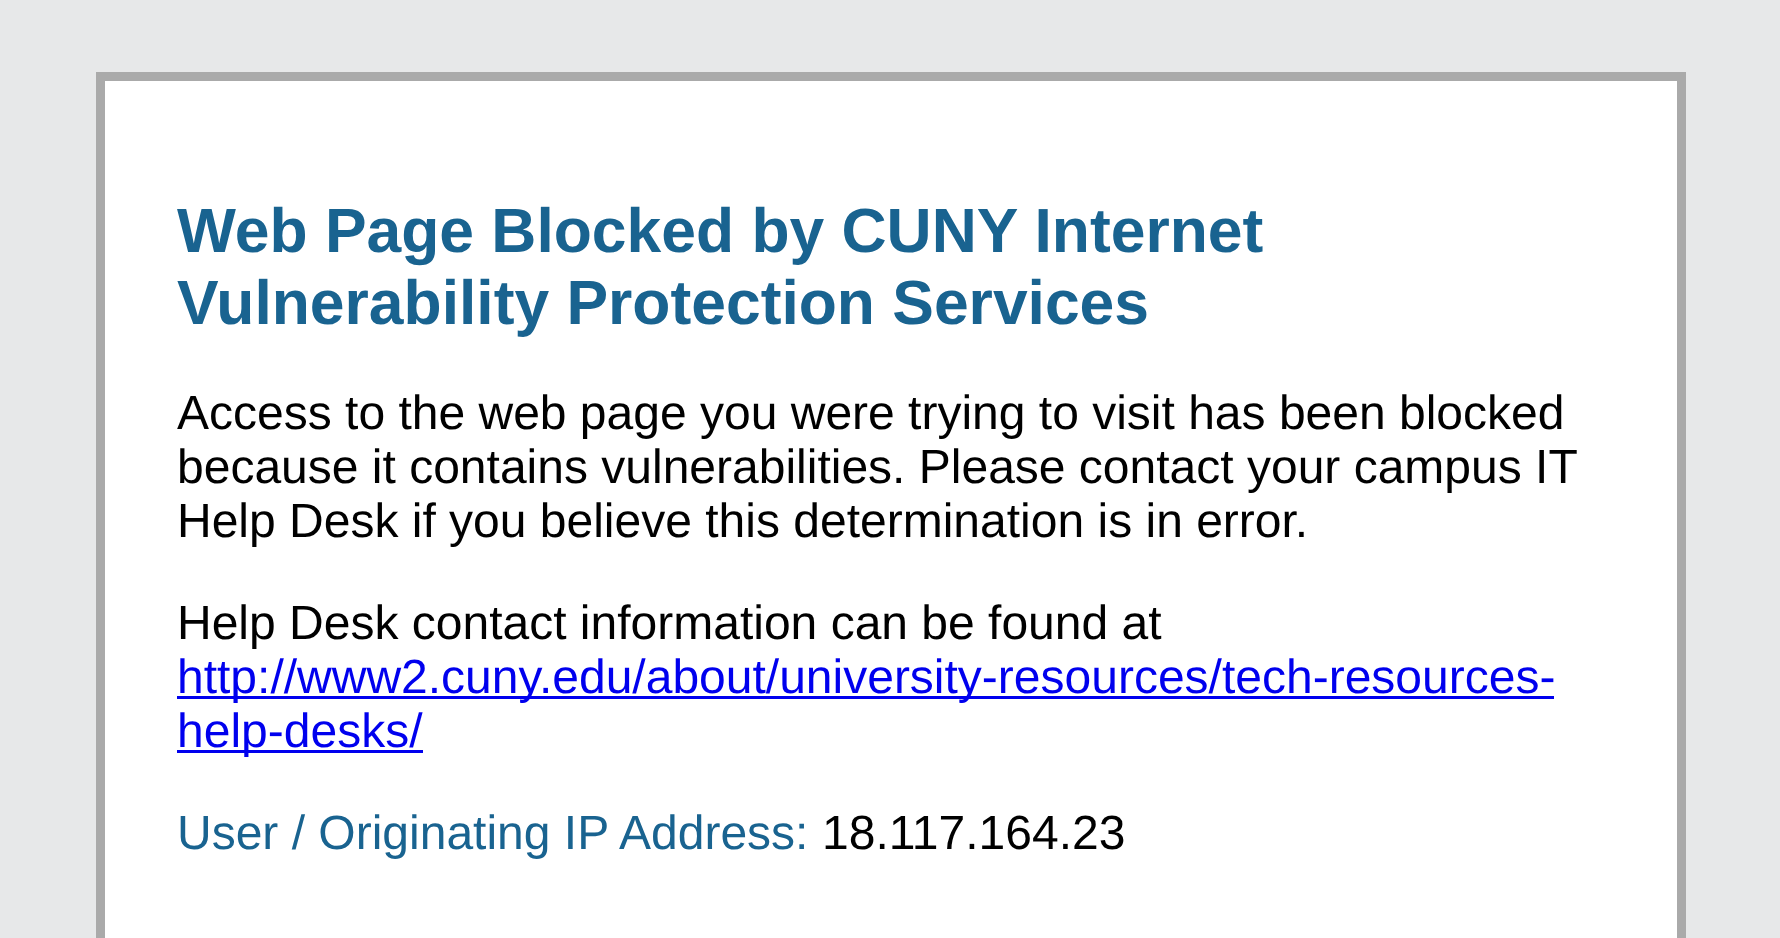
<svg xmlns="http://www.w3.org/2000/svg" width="1780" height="938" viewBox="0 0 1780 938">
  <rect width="100%" height="100%" fill="rgb(231,232,233)"/>
  <rect x="100.5" y="76.5" width="1581" height="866" fill="rgb(255,255,255)" stroke="rgb(170,170,170)" stroke-width="9"/>
  <g font-family="Liberation Sans" font-size="62.4" font-weight="bold" fill="rgb(25,99,144)">
    <text>
      <tspan x="177" y="252">Web Page Blocked by CUNY Internet</tspan>
      <tspan x="177" y="324">Vulnerability Protection Services</tspan>
    </text>
  </g>
  <g font-family="Liberation Sans" font-size="48" fill="rgb(0,0,0)">
    <text>
      <tspan x="177" y="429">Access to the web page you were trying to visit has been blocked</tspan>
      <tspan x="177" y="483">because it contains vulnerabilities. Please contact your campus IT</tspan>
      <tspan x="177" y="537">Help Desk if you believe this determination is in error.</tspan>
    </text>
    <text x="177" y="639">Help Desk contact information can be found at</text>
  </g>
  <rect x="177" y="696" width="1377" height="3" fill="rgb(0,0,238)"/>
  <text x="177" y="693" font-family="Liberation Sans" font-size="48" fill="rgb(0,0,238)">http://www2.cuny.edu/about/university-resources/tech-resources-</text>
  <rect x="177" y="750" width="246" height="3" fill="rgb(0,0,238)"/>
  <text x="177" y="747" font-family="Liberation Sans" font-size="48" fill="rgb(0,0,238)">help-desks/</text>
  <text x="177" y="849" font-family="Liberation Sans" font-size="48" fill="rgb(25,99,144)">User / Originating IP Address:</text>
  <text x="822" y="849" font-family="Liberation Sans" font-size="48" fill="rgb(0,0,0)">18.117.164.23</text>
</svg>
